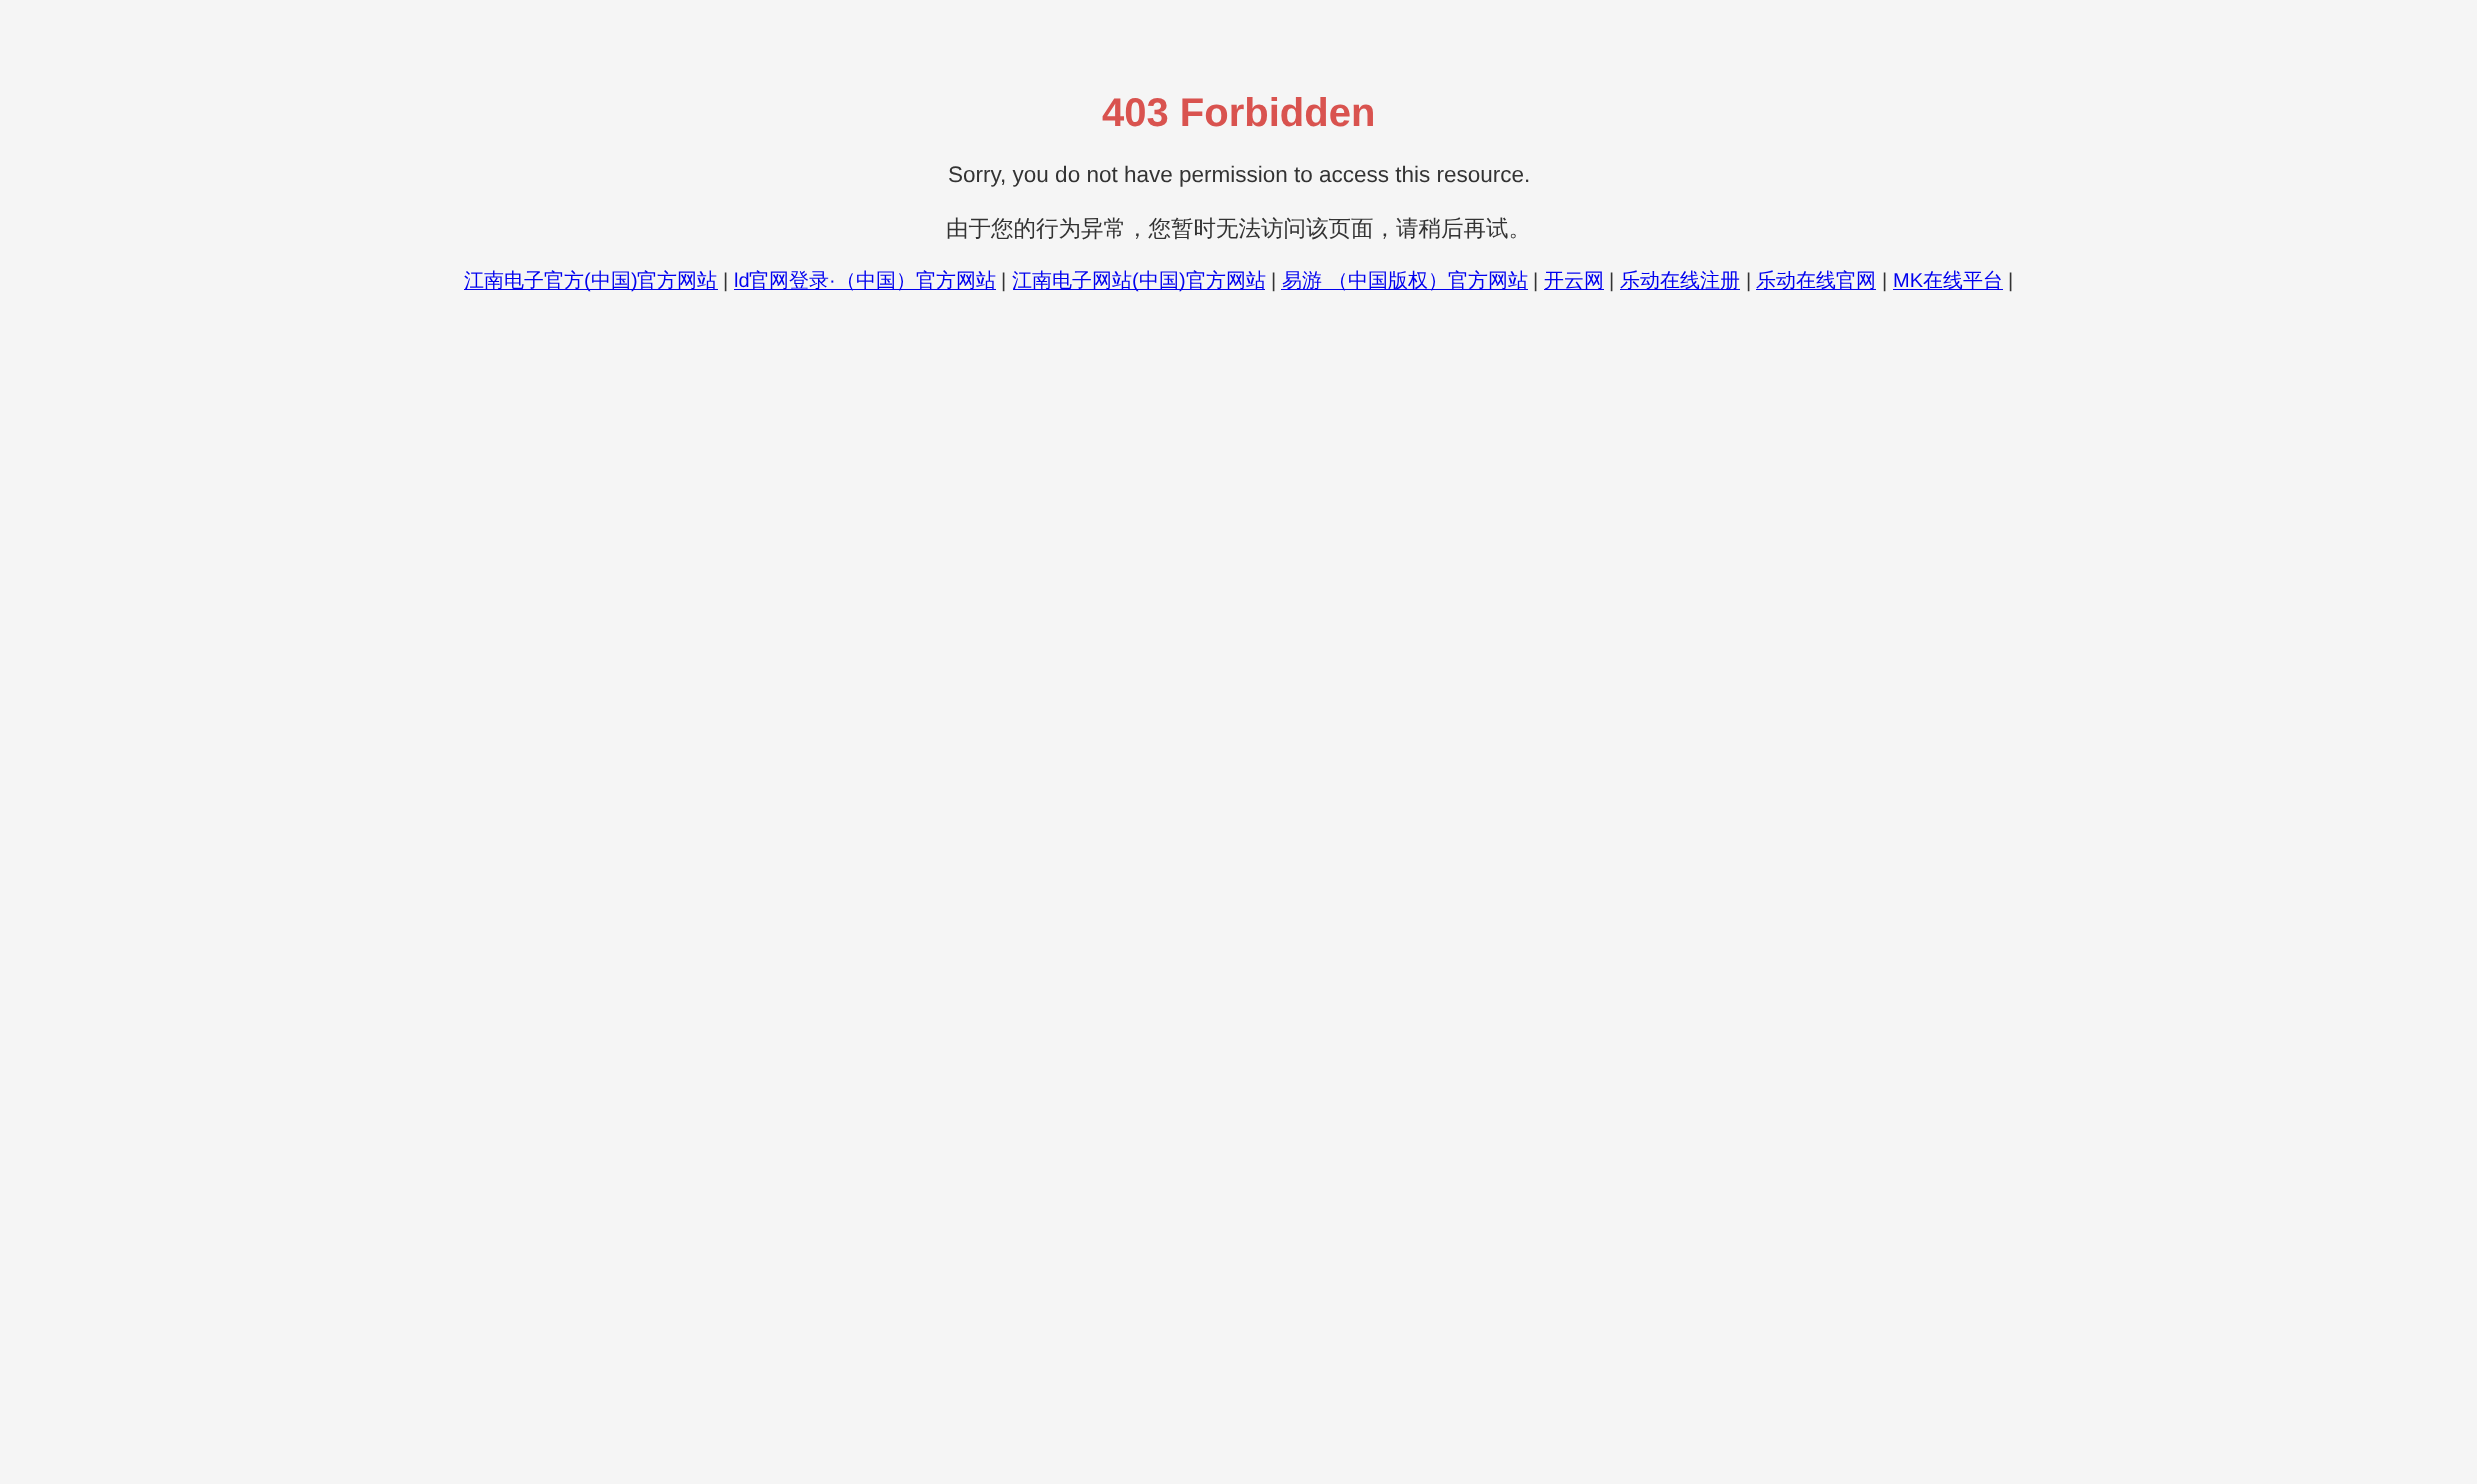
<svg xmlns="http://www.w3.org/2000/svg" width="2477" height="1484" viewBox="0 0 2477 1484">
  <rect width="100%" height="100%" fill="rgb(245,245,245)"/>
  <text x="1102" y="126" font-family="Liberation Sans" font-size="40" font-weight="bold" fill="rgb(217,83,79)">403 Forbidden</text>
  <text x="948" y="182" font-family="Liberation Sans" font-size="22.5" fill="rgb(51,51,51)">Sorry, you do not have permission to access this resource.</text>
  <text x="946" y="236" font-family="WenQuanYi Zen Hei" font-size="22.5" font-weight="500" fill="rgb(51,51,51)">由于您的行为异常，您暂时无法访问该页面，请稍后再试。</text>
  <rect x="464" y="289" width="254" height="1" fill="rgb(0,0,238)"/>
  <text x="464" y="287" font-family="WenQuanYi Zen Hei" font-size="20" font-weight="500" fill="rgb(0,0,238)">江南电子官方</text>
  <text x="584" y="287" font-family="Liberation Sans" font-size="20" fill="rgb(0,0,238)">(</text>
  <text x="591" y="287" font-family="WenQuanYi Zen Hei" font-size="20" font-weight="500" fill="rgb(0,0,238)">中国</text>
  <text x="631" y="287" font-family="Liberation Sans" font-size="20" fill="rgb(0,0,238)">)</text>
  <text x="637" y="287" font-family="WenQuanYi Zen Hei" font-size="20" font-weight="500" fill="rgb(0,0,238)">官方网站</text>
  <text x="723" y="287" font-family="Liberation Sans" font-size="20" fill="rgb(51,51,51)">|</text>
  <text x="734" y="287" font-family="Liberation Sans" font-size="20" fill="rgb(0,0,238)">ld</text>
  <rect x="734" y="289" width="262" height="1" fill="rgb(0,0,238)"/>
  <text x="749" y="287" font-family="WenQuanYi Zen Hei" font-size="20" font-weight="500" fill="rgb(0,0,238)">官网登录</text>
  <text x="829" y="287" font-family="Liberation Sans" font-size="20" fill="rgb(0,0,238)">·</text>
  <text x="836" y="287" font-family="WenQuanYi Zen Hei" font-size="20" font-weight="500" fill="rgb(0,0,238)">（中国）官方网站</text>
  <text x="1001" y="287" font-family="Liberation Sans" font-size="20" fill="rgb(51,51,51)">|</text>
  <rect x="1013" y="289" width="252" height="1" fill="rgb(0,0,238)"/>
  <text x="1012" y="287" font-family="WenQuanYi Zen Hei" font-size="20" font-weight="500" fill="rgb(0,0,238)">江南电子网站</text>
  <text x="1132" y="287" font-family="Liberation Sans" font-size="20" fill="rgb(0,0,238)">(</text>
  <text x="1139" y="287" font-family="WenQuanYi Zen Hei" font-size="20" font-weight="500" fill="rgb(0,0,238)">中国</text>
  <text x="1179" y="287" font-family="Liberation Sans" font-size="20" fill="rgb(0,0,238)">)</text>
  <text x="1186" y="287" font-family="WenQuanYi Zen Hei" font-size="20" font-weight="500" fill="rgb(0,0,238)">官方网站</text>
  <text x="1271" y="287" font-family="Liberation Sans" font-size="20" fill="rgb(51,51,51)">|</text>
  <rect x="1281" y="289" width="247" height="1" fill="rgb(0,0,238)"/>
  <text x="1282" y="287" font-family="WenQuanYi Zen Hei" font-size="20" font-weight="500" fill="rgb(0,0,238)">易游 （中国版权）官方网站</text>
  <text x="1533" y="287" font-family="Liberation Sans" font-size="20" fill="rgb(51,51,51)">|</text>
  <rect x="1544" y="289" width="60" height="1" fill="rgb(0,0,238)"/>
  <text x="1544" y="287" font-family="WenQuanYi Zen Hei" font-size="20" font-weight="500" fill="rgb(0,0,238)">开云网</text>
  <text x="1609" y="287" font-family="Liberation Sans" font-size="20" fill="rgb(51,51,51)">|</text>
  <rect x="1620" y="289" width="120" height="1" fill="rgb(0,0,238)"/>
  <text x="1620" y="287" font-family="WenQuanYi Zen Hei" font-size="20" font-weight="500" fill="rgb(0,0,238)">乐动在线注册</text>
  <text x="1746" y="287" font-family="Liberation Sans" font-size="20" fill="rgb(51,51,51)">|</text>
  <rect x="1756" y="289" width="120" height="1" fill="rgb(0,0,238)"/>
  <text x="1756" y="287" font-family="WenQuanYi Zen Hei" font-size="20" font-weight="500" fill="rgb(0,0,238)">乐动在线官网</text>
  <text x="1882" y="287" font-family="Liberation Sans" font-size="20" fill="rgb(51,51,51)">|</text>
  <text x="1893" y="287" font-family="Liberation Sans" font-size="20" fill="rgb(0,0,238)">MK</text>
  <rect x="1893" y="289" width="110" height="1" fill="rgb(0,0,238)"/>
  <text x="1923" y="287" font-family="WenQuanYi Zen Hei" font-size="20" font-weight="500" fill="rgb(0,0,238)">在线平台</text>
  <text x="2008" y="287" font-family="Liberation Sans" font-size="20" fill="rgb(51,51,51)">|</text>
</svg>
